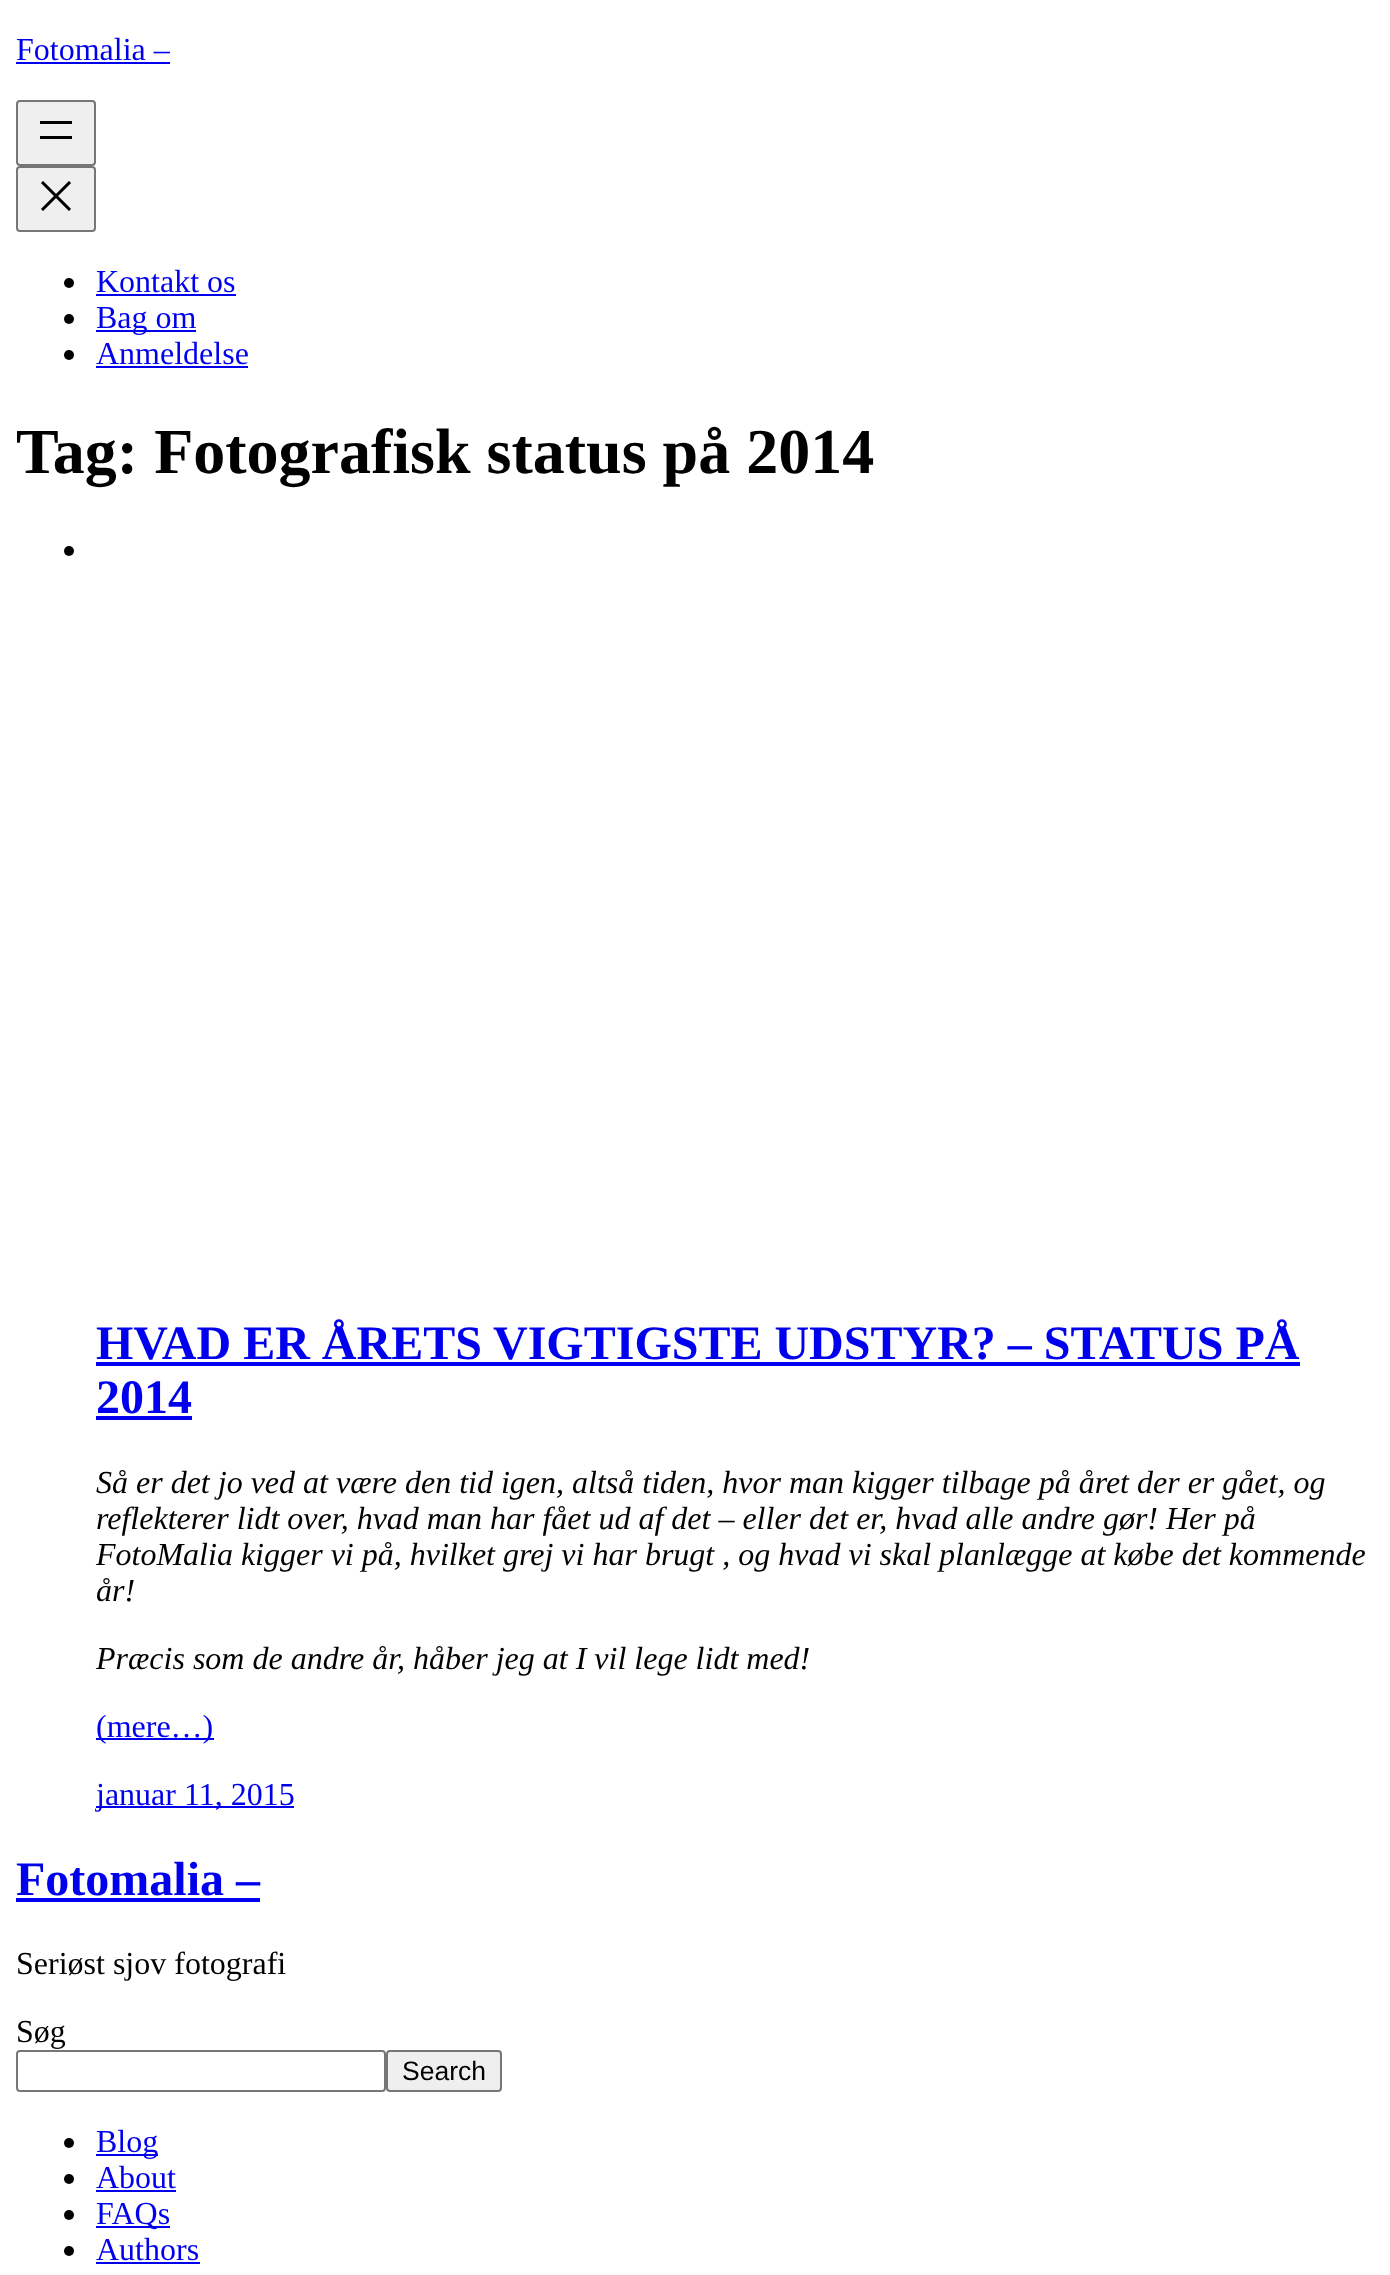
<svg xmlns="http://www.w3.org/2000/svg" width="1390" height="2275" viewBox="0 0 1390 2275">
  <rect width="100%" height="100%" fill="rgb(255,255,255)"/>
  <text x="16" y="60" font-family="Liberation Serif" font-size="32" fill="rgb(0,0,238)">Fotomalia –</text>
  <rect x="16" y="62" width="154" height="2" fill="rgb(0,0,238)"/>
  <rect x="17" y="101" width="78" height="64" rx="3" fill="rgb(239,239,239)" stroke="rgb(118,118,118)" stroke-width="2"/>
  <rect x="40" y="121" width="32" height="3" fill="rgb(0,0,0)"/>
  <rect x="40" y="136" width="32" height="3" fill="rgb(0,0,0)"/>
  <rect x="17" y="167" width="78" height="64" rx="3" fill="rgb(239,239,239)" stroke="rgb(118,118,118)" stroke-width="2"/>
  <image x="41" y="181" width="30" height="30" href="pic1.png"/>
  <circle cx="69" cy="283" r="5" fill="rgb(0,0,0)"/>
  <text x="96" y="292" font-family="Liberation Serif" font-size="32" fill="rgb(0,0,238)">Kontakt os</text>
  <rect x="96" y="294" width="140" height="2" fill="rgb(0,0,238)"/>
  <circle cx="69" cy="319" r="5" fill="rgb(0,0,0)"/>
  <rect x="96" y="330" width="100" height="2" fill="rgb(0,0,238)"/>
  <text x="96" y="328" font-family="Liberation Serif" font-size="32" fill="rgb(0,0,238)">Bag om</text>
  <circle cx="69" cy="355" r="5" fill="rgb(0,0,0)"/>
  <text x="96" y="364" font-family="Liberation Serif" font-size="32" fill="rgb(0,0,238)">Anmeldelse</text>
  <rect x="96" y="366" width="152" height="2" fill="rgb(0,0,238)"/>
  <text x="16" y="473" font-family="Liberation Serif" font-size="64" font-weight="bold" fill="rgb(0,0,0)">Tag: Fotografisk status på 2014</text>
  <circle cx="69" cy="551" r="5" fill="rgb(0,0,0)"/>
  <text x="96" y="1359" font-family="Liberation Serif" font-size="48" font-weight="bold" fill="rgb(0,0,238)">HVAD ER ÅRETS VIGTIGSTE UDSTYR? – STATUS PÅ</text>
  <rect x="96" y="1362" width="1204" height="4" fill="rgb(0,0,238)"/>
  <text x="96" y="1413" font-family="Liberation Serif" font-size="48" font-weight="bold" fill="rgb(0,0,238)">2014</text>
  <rect x="96" y="1416" width="96" height="4" fill="rgb(0,0,238)"/>
  <g font-family="Liberation Serif" font-size="32" font-style="italic" fill="rgb(0,0,0)">
    <text>
      <tspan x="96" y="1493">Så er det jo ved at være den tid igen, altså tiden, hvor man kigger tilbage på året der er gået, og</tspan>
      <tspan x="96" y="1529">reflekterer lidt over, hvad man har fået ud af det – eller det er, hvad alle andre gør! Her på</tspan>
      <tspan x="96" y="1565">FotoMalia kigger vi på, hvilket grej vi har brugt , og hvad vi skal planlægge at købe det kommende</tspan>
      <tspan x="96" y="1601">år!</tspan>
    </text>
    <text x="96" y="1669">Præcis som de andre år, håber jeg at I vil lege lidt med!</text>
  </g>
  <rect x="96" y="1738" width="118" height="2" fill="rgb(0,0,238)"/>
  <text x="96" y="1737" font-family="Liberation Serif" font-size="32" fill="rgb(0,0,238)">(mere…)</text>
  <rect x="96" y="1806" width="198" height="2" fill="rgb(0,0,238)"/>
  <text x="96" y="1805" font-family="Liberation Serif" font-size="32" fill="rgb(0,0,238)">januar 11, 2015</text>
  <text x="16" y="1895" font-family="Liberation Serif" font-size="48" font-weight="bold" fill="rgb(0,0,238)">Fotomalia –</text>
  <rect x="16" y="1898" width="244" height="4" fill="rgb(0,0,238)"/>
  <g font-family="Liberation Serif" font-size="32" fill="rgb(0,0,0)">
    <text x="16" y="1974">Seriøst sjov fotografi</text>
    <text x="16" y="2042">Søg</text>
  </g>
  <rect x="17" y="2051" width="368" height="40" rx="3" fill="none" stroke="rgb(118,118,118)" stroke-width="2"/>
  <rect x="387" y="2051" width="114" height="40" rx="3" fill="rgb(239,239,239)" stroke="rgb(118,118,118)" stroke-width="2"/>
  <text x="402" y="2080" font-family="Liberation Sans" font-size="26.5" fill="rgb(0,0,0)">Search</text>
  <circle cx="69" cy="2143" r="5" fill="rgb(0,0,0)"/>
  <rect x="96" y="2154" width="62" height="2" fill="rgb(0,0,238)"/>
  <text x="96" y="2152" font-family="Liberation Serif" font-size="32" fill="rgb(0,0,238)">Blog</text>
  <circle cx="69" cy="2179" r="5" fill="rgb(0,0,0)"/>
  <text x="96" y="2188" font-family="Liberation Serif" font-size="32" fill="rgb(0,0,238)">About</text>
  <rect x="96" y="2190" width="80" height="2" fill="rgb(0,0,238)"/>
  <circle cx="69" cy="2215" r="5" fill="rgb(0,0,0)"/>
  <rect x="96" y="2226" width="74" height="2" fill="rgb(0,0,238)"/>
  <text x="96" y="2224" font-family="Liberation Serif" font-size="32" fill="rgb(0,0,238)">FAQs</text>
  <circle cx="69" cy="2251" r="5" fill="rgb(0,0,0)"/>
  <text x="96" y="2260" font-family="Liberation Serif" font-size="32" fill="rgb(0,0,238)">Authors</text>
  <rect x="96" y="2262" width="104" height="2" fill="rgb(0,0,238)"/>
</svg>
